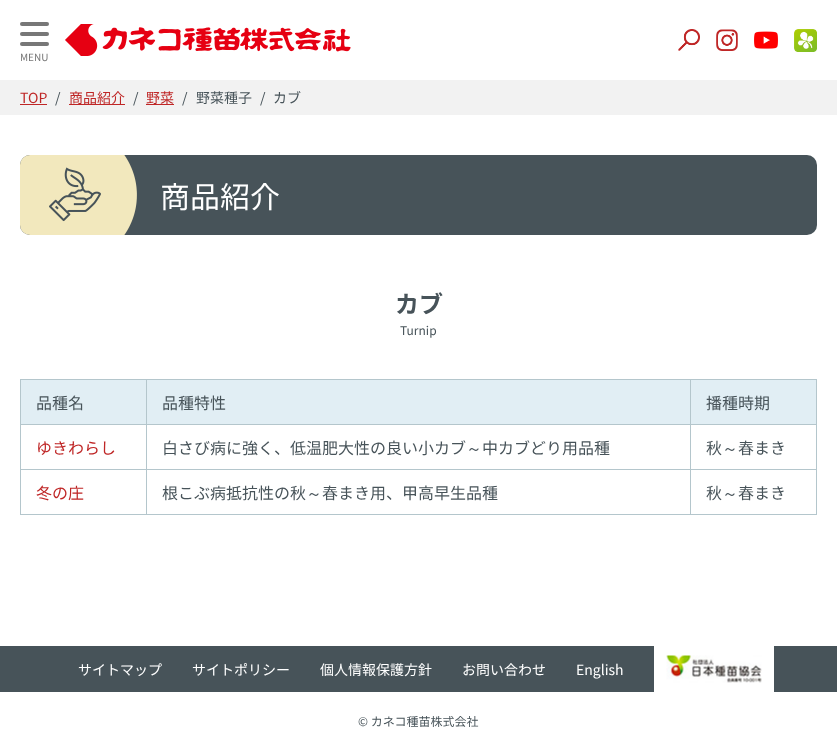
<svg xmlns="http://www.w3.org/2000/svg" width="837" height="750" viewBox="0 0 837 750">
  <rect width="100%" height="100%" fill="rgb(255,255,255)"/>
  <image x="65" y="24" width="286" height="32" href="pic1.png"/>
  <image x="678" y="29" width="22" height="22" href="pic2.png"/>
  <image x="716" y="29" width="22" height="22" href="pic3.png"/>
  <image x="754" y="31" width="24" height="18" href="pic4.png"/>
  <image x="794" y="29" width="23" height="23" href="pic5.png"/>
  <rect x="20" y="22" width="29" height="4" rx="2" fill="rgb(119,119,119)"/>
  <rect x="20" y="32" width="29" height="4" rx="2" fill="rgb(119,119,119)"/>
  <rect x="20" y="42" width="29" height="4" rx="2" fill="rgb(119,119,119)"/>
  <text x="20" y="61" font-family="Noto Sans JP" font-size="10" fill="rgb(119,119,119)">MENU</text>
  <rect x="0" y="80" width="837" height="35" fill="rgb(242,242,242)"/>
  <text x="20" y="103" font-family="Noto Sans JP" font-size="14" fill="rgb(191,38,38)">TOP</text>
  <rect x="20" y="104" width="27" height="1" fill="rgb(191,38,38)"/>
  <text x="55" y="103" font-family="Noto Sans JP" font-size="14" fill="rgb(71,83,89)">/</text>
  <rect x="69" y="104" width="56" height="1" fill="rgb(191,38,38)"/>
  <text x="69" y="103" font-family="Noto Sans JP" font-size="14" fill="rgb(191,38,38)">商品紹介</text>
  <text x="133" y="103" font-family="Noto Sans JP" font-size="14" fill="rgb(71,83,89)">/</text>
  <rect x="146" y="104" width="28" height="1" fill="rgb(191,38,38)"/>
  <text x="146" y="103" font-family="Noto Sans JP" font-size="14" fill="rgb(191,38,38)">野菜</text>
  <g font-family="Noto Sans JP" font-size="14" fill="rgb(71,83,89)">
    <text x="182" y="103">/</text>
    <text x="196" y="103">野菜種子</text>
    <text x="260" y="103">/</text>
    <text x="273" y="103">カブ</text>
  </g>
  <rect x="20" y="155" width="797" height="80" rx="10" fill="rgb(71,83,89)"/>
  <image x="20" y="155" width="117" height="80" href="pic6.png"/>
  <text x="160" y="208" font-family="Noto Sans JP" font-size="30" fill="rgb(255,255,255)">商品紹介</text>
  <text x="395" y="313" font-family="Noto Sans JP" font-size="24" font-weight="bold" fill="rgb(71,83,89)">カブ</text>
  <text x="400" y="335" font-family="Noto Sans JP" font-size="12" fill="rgb(71,83,89)">Turnip</text>
  <rect x="20" y="379" width="797" height="1" fill="rgb(180,198,204)"/>
  <rect x="20" y="379" width="1" height="136" fill="rgb(180,198,204)"/>
  <rect x="21" y="380" width="125" height="44" fill="rgb(225,238,244)"/>
  <rect x="816" y="379" width="1" height="136" fill="rgb(180,198,204)"/>
  <rect x="690" y="514" width="127" height="1" fill="rgb(180,198,204)"/>
  <rect x="690" y="469" width="1" height="46" fill="rgb(180,198,204)"/>
  <rect x="690" y="469" width="127" height="1" fill="rgb(180,198,204)"/>
  <rect x="690" y="424" width="1" height="46" fill="rgb(180,198,204)"/>
  <rect x="690" y="424" width="127" height="1" fill="rgb(180,198,204)"/>
  <rect x="690" y="379" width="1" height="46" fill="rgb(180,198,204)"/>
  <rect x="146" y="514" width="545" height="1" fill="rgb(180,198,204)"/>
  <rect x="146" y="469" width="1" height="46" fill="rgb(180,198,204)"/>
  <rect x="146" y="469" width="545" height="1" fill="rgb(180,198,204)"/>
  <rect x="146" y="424" width="1" height="46" fill="rgb(180,198,204)"/>
  <rect x="146" y="424" width="545" height="1" fill="rgb(180,198,204)"/>
  <rect x="146" y="379" width="1" height="46" fill="rgb(180,198,204)"/>
  <rect x="20" y="424" width="127" height="1" fill="rgb(180,198,204)"/>
  <text x="36" y="409" font-family="Noto Sans JP" font-size="16" fill="rgb(71,83,89)">品種名</text>
  <rect x="147" y="380" width="543" height="44" fill="rgb(225,238,244)"/>
  <text x="162" y="409" font-family="Noto Sans JP" font-size="16" fill="rgb(71,83,89)">品種特性</text>
  <rect x="691" y="380" width="125" height="44" fill="rgb(225,238,244)"/>
  <text x="706" y="409" font-family="Noto Sans JP" font-size="16" fill="rgb(71,83,89)">播種時期</text>
  <rect x="20" y="469" width="127" height="1" fill="rgb(180,198,204)"/>
  <text x="36" y="454" font-family="Noto Sans JP" font-size="16" fill="rgb(191,38,38)">ゆきわらし</text>
  <text x="162" y="454" font-family="Noto Sans JP" font-size="16" fill="rgb(71,83,89)">白さび病に強く、低温肥大性の良い小カブ</text>
  <text x="466" y="454" font-family="WenQuanYi Zen Hei" font-size="16" font-weight="500" fill="rgb(71,83,89)">～</text>
  <g font-family="Noto Sans JP" font-size="16" fill="rgb(71,83,89)">
    <text x="482" y="454">中カブどり用品種</text>
    <text x="706" y="454">秋</text>
  </g>
  <text x="722" y="454" font-family="WenQuanYi Zen Hei" font-size="16" font-weight="500" fill="rgb(71,83,89)">～</text>
  <text x="738" y="454" font-family="Noto Sans JP" font-size="16" fill="rgb(71,83,89)">春まき</text>
  <rect x="20" y="514" width="127" height="1" fill="rgb(180,198,204)"/>
  <text x="36" y="499" font-family="Noto Sans JP" font-size="16" fill="rgb(191,38,38)">冬の庄</text>
  <text x="162" y="499" font-family="Noto Sans JP" font-size="16" fill="rgb(71,83,89)">根こぶ病抵抗性の秋</text>
  <text x="306" y="499" font-family="WenQuanYi Zen Hei" font-size="16" font-weight="500" fill="rgb(71,83,89)">～</text>
  <g font-family="Noto Sans JP" font-size="16" fill="rgb(71,83,89)">
    <text x="322" y="499">春まき用、甲高早生品種</text>
    <text x="706" y="499">秋</text>
  </g>
  <text x="722" y="499" font-family="WenQuanYi Zen Hei" font-size="16" font-weight="500" fill="rgb(71,83,89)">～</text>
  <text x="738" y="499" font-family="Noto Sans JP" font-size="16" fill="rgb(71,83,89)">春まき</text>
  <rect x="0" y="646" width="837" height="46" fill="rgb(71,83,89)"/>
  <g font-family="Noto Sans JP" font-size="14" fill="rgb(255,255,255)">
    <text x="78" y="675">サイトマップ</text>
    <text x="192" y="675">サイトポリシー</text>
    <text x="320" y="675">個人情報保護方針</text>
    <text x="462" y="675">お問い合わせ</text>
    <text x="576" y="675">English</text>
  </g>
  <rect x="654" y="646" width="120" height="46" fill="rgb(255,255,255)"/>
  <image x="666" y="655" width="96" height="28" href="pic7.png"/>
  <text x="358" y="726" font-family="Noto Sans JP" font-size="12" fill="rgb(71,83,89)">© カネコ種苗株式会社</text>
</svg>
